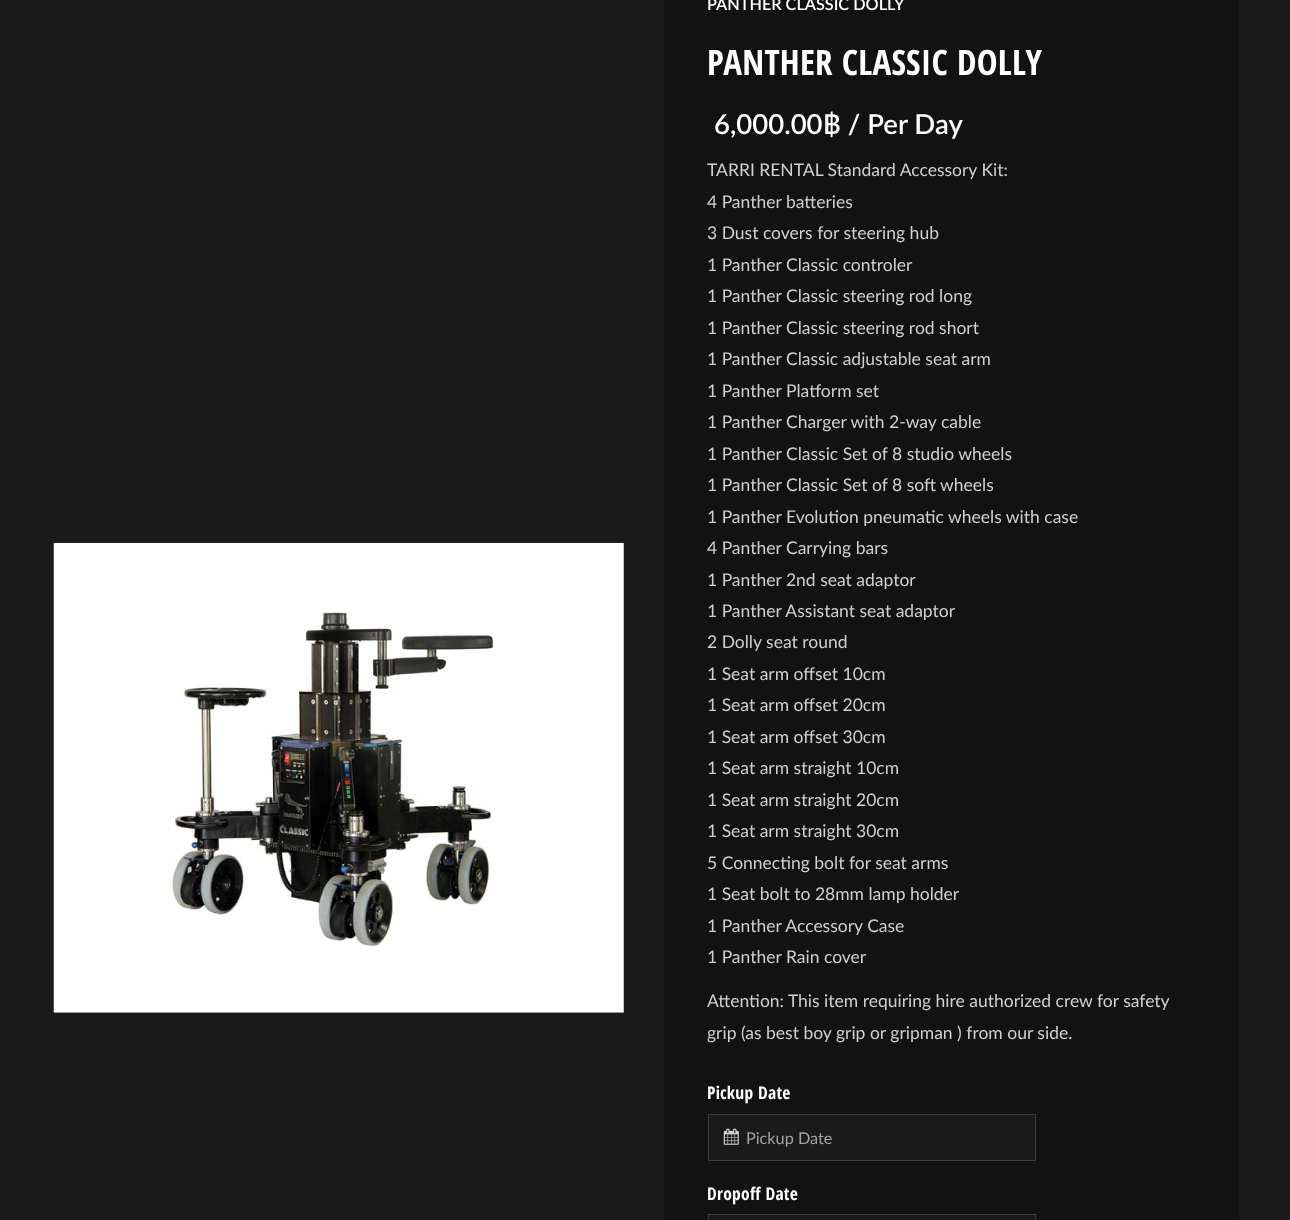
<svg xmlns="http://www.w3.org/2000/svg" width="1290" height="1220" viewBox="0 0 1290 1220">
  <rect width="100%" height="100%" fill="rgb(26,26,26)"/>
  <image x="53" y="542" width="571" height="471" href="pic1.png"/>
  <rect x="664" y="0" width="575" height="1220" fill="rgb(18,18,18)"/>
  <text x="707" y="10" font-family="Lato" font-size="16.25" font-weight="600" fill="rgb(255,255,255)">PANTHER CLASSIC DOLLY</text>
  <text x="707" y="75" font-family="Open Sans Condensed" font-size="35" font-weight="bold" letter-spacing="0.25" fill="rgb(255,255,255)">PANTHER CLASSIC DOLLY</text>
  <text x="714" y="134" font-family="Lato" font-size="27.5" font-weight="600" fill="rgb(255,255,255)">6,000.00฿ / Per Day</text>
  <g font-family="Lato" font-size="17.5" fill="rgb(208,208,208)">
    <text>
      <tspan x="707" y="176">TARRI RENTAL Standard Accessory Kit:</tspan>
      <tspan x="707" y="208">4 Panther batteries</tspan>
      <tspan x="707" y="239">3 Dust covers for steering hub</tspan>
      <tspan x="707" y="271">1 Panther Classic controler</tspan>
      <tspan x="707" y="302">1 Panther Classic steering rod long</tspan>
      <tspan x="707" y="334">1 Panther Classic steering rod short</tspan>
      <tspan x="707" y="365">1 Panther Classic adjustable seat arm</tspan>
      <tspan x="707" y="397">1 Panther Platform set</tspan>
      <tspan x="707" y="428">1 Panther Charger with 2-way cable</tspan>
      <tspan x="707" y="460">1 Panther Classic Set of 8 studio wheels</tspan>
      <tspan x="707" y="491">1 Panther Classic Set of 8 soft wheels</tspan>
      <tspan x="707" y="523">1 Panther Evolution pneumatic wheels with case</tspan>
      <tspan x="707" y="554">4 Panther Carrying bars</tspan>
      <tspan x="707" y="586">1 Panther 2nd seat adaptor</tspan>
      <tspan x="707" y="617">1 Panther Assistant seat adaptor</tspan>
      <tspan x="707" y="648">2 Dolly seat round</tspan>
      <tspan x="707" y="680">1 Seat arm offset 10cm</tspan>
      <tspan x="707" y="711">1 Seat arm offset 20cm</tspan>
      <tspan x="707" y="743">1 Seat arm offset 30cm</tspan>
      <tspan x="707" y="774">1 Seat arm straight 10cm</tspan>
      <tspan x="707" y="806">1 Seat arm straight 20cm</tspan>
      <tspan x="707" y="837">1 Seat arm straight 30cm</tspan>
      <tspan x="707" y="869">5 Connecting bolt for seat arms</tspan>
      <tspan x="707" y="900">1 Seat bolt to 28mm lamp holder</tspan>
      <tspan x="707" y="932">1 Panther Accessory Case</tspan>
      <tspan x="707" y="963">1 Panther Rain cover</tspan>
    </text>
    <text>
      <tspan x="707" y="1007">Attention: This item requiring hire authorized crew for safety</tspan>
      <tspan x="707" y="1039">grip (as best boy grip or gripman ) from our side.</tspan>
    </text>
  </g>
  <text x="707" y="1099" font-family="Open Sans Condensed" font-size="17.5" font-weight="bold" letter-spacing="0.25" fill="rgb(255,255,255)">Pickup Date</text>
  <rect x="708.5" y="1114.5" width="327" height="46" fill="rgb(26,26,26)" stroke="rgb(60,60,60)"/>
  <image x="723" y="1128" width="16" height="17" href="pic2.png"/>
  <text x="746" y="1144" font-family="Lato" font-size="16.25" fill="rgb(163,163,163)">Pickup Date</text>
  <text x="707" y="1200" font-family="Open Sans Condensed" font-size="17.5" font-weight="bold" letter-spacing="0.25" fill="rgb(255,255,255)">Dropoff Date</text>
  <rect x="708.5" y="1214.5" width="327" height="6" fill="rgb(26,26,26)" stroke="rgb(60,60,60)"/>
</svg>
